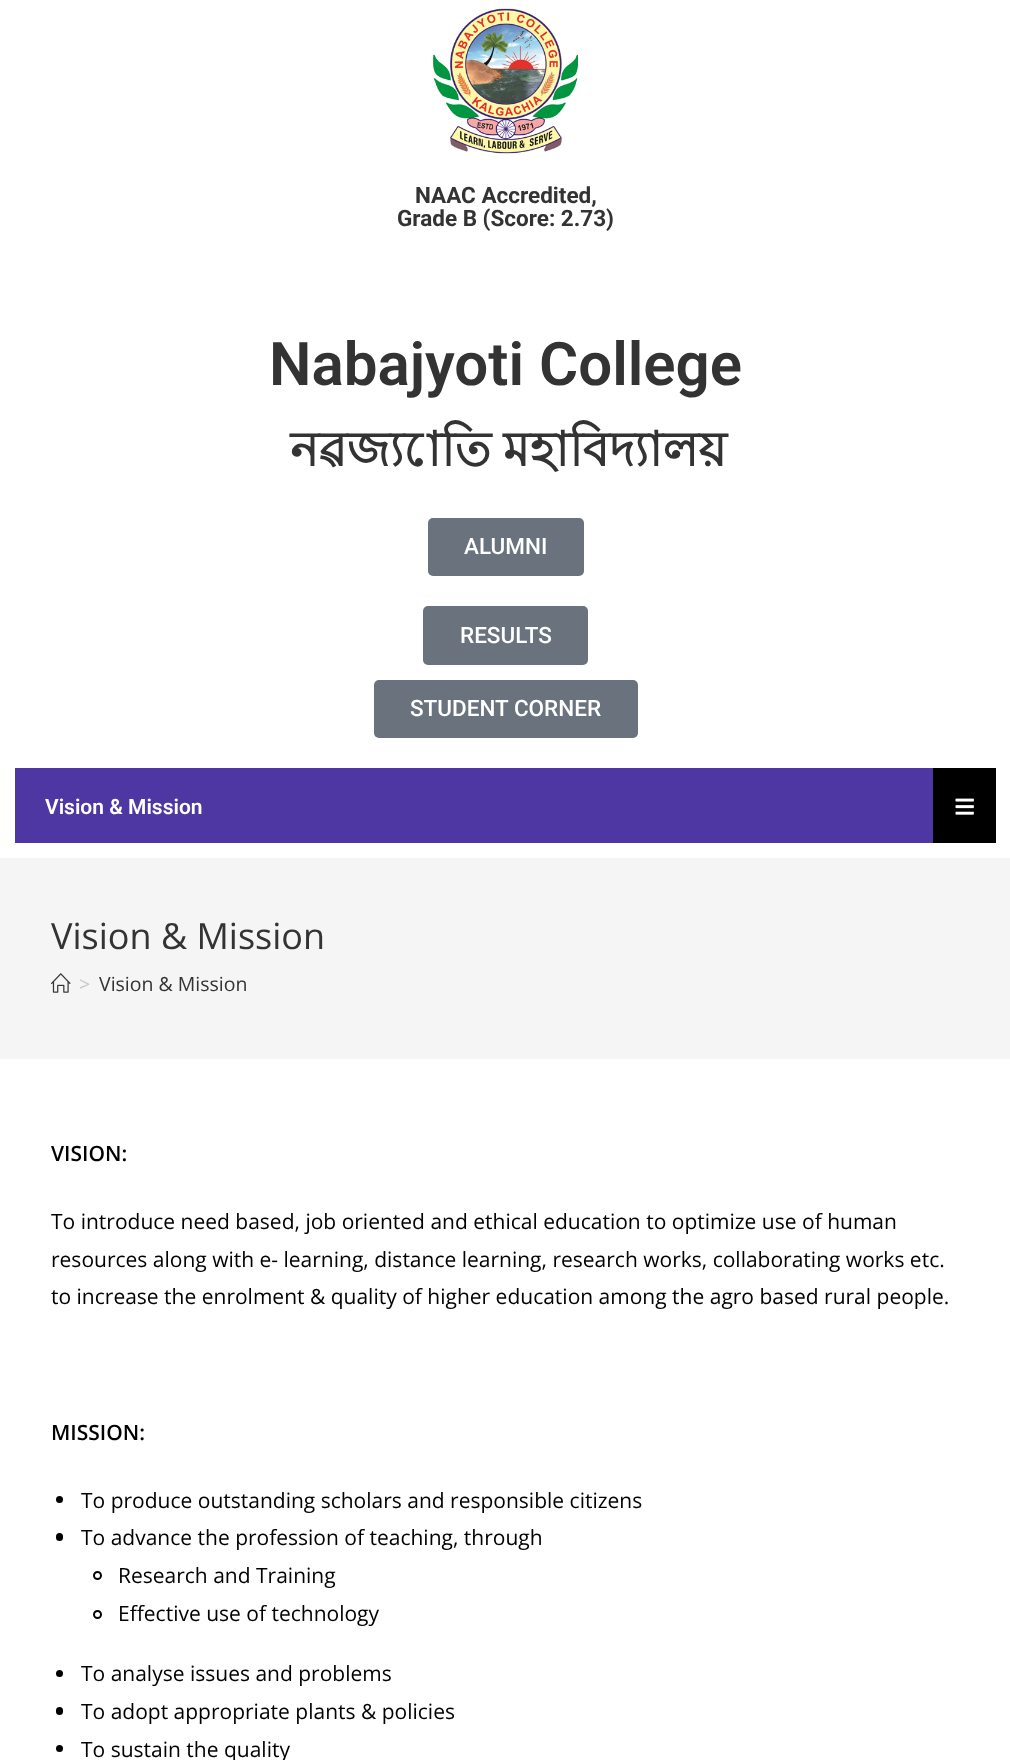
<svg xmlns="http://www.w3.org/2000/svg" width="1010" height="1760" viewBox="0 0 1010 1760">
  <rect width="100%" height="100%" fill="rgb(255,255,255)"/>
  <image x="433" y="8" width="145" height="146" href="pic1.png"/>
  <g font-family="Roboto" font-size="22.5" font-weight="bold" fill="rgb(51,51,51)">
    <text x="415" y="203">NAAC Accredited,</text>
    <text x="397" y="226">Grade B (Score: 2.73)</text>
  </g>
  <text x="269" y="385" font-family="Roboto" font-size="60" font-weight="600" fill="rgb(51,51,51)">Nabajyoti College</text>
  <text x="290" y="466" word-spacing="-1" font-family="Lohit Bengali" font-size="48" font-weight="bold" fill="rgb(51,51,51)">নৱজ্যোতি মহাবিদ্যালয়</text>
  <rect x="428" y="518" width="156" height="58" rx="5" fill="rgb(105,114,125)"/>
  <text x="464" y="554" font-family="Roboto" font-size="22.5" font-weight="500" fill="rgb(255,255,255)">ALUMNI</text>
  <rect x="423" y="606" width="165" height="59" rx="5" fill="rgb(105,114,125)"/>
  <text x="460" y="643" font-family="Roboto" font-size="22.5" font-weight="500" fill="rgb(255,255,255)">RESULTS</text>
  <rect x="374" y="680" width="264" height="58" rx="5" fill="rgb(105,114,125)"/>
  <text x="410" y="716" font-family="Roboto" font-size="22.5" font-weight="500" fill="rgb(255,255,255)">STUDENT CORNER</text>
  <rect x="15" y="768" width="918" height="75" fill="rgb(78,54,163)"/>
  <text x="45" y="814" font-family="Roboto" font-size="21" font-weight="600" fill="rgb(255,255,255)">Vision &amp; Mission</text>
  <rect x="933" y="768" width="63" height="75" fill="rgb(0,0,0)"/>
  <image x="955" y="798" width="19" height="17" href="pic2.png"/>
  <rect x="0" y="858" width="1010" height="201" fill="rgb(245,245,245)"/>
  <text x="51" y="949" font-family="Open Sans" font-size="36" fill="rgb(51,51,51)">Vision &amp; Mission</text>
  <image x="51" y="973" width="20" height="20" href="pic3.png"/>
  <text x="79" y="991" font-family="Open Sans" font-size="19.5" fill="rgb(198,198,198)">&gt;</text>
  <text x="99" y="991" font-family="Open Sans" font-size="19.5" fill="rgb(51,51,51)">Vision &amp; Mission</text>
  <text x="51" y="1161" font-family="Open Sans" font-size="21" font-weight="600" fill="rgb(0,0,0)">VISION:</text>
  <g font-family="Open Sans" font-size="21" fill="rgb(0,0,0)">
    <text>
      <tspan x="51" y="1229">To introduce need based, job oriented and ethical education to optimize use of human</tspan>
      <tspan x="51" y="1267">resources along with e- learning, distance learning, research works, collaborating works etc.</tspan>
      <tspan x="51" y="1304">to increase the enrolment &amp; quality of higher education among the agro based rural people.</tspan>
    </text>
  </g>
  <text x="51" y="1440" font-family="Open Sans" font-size="21" font-weight="600" fill="rgb(0,0,0)">MISSION:</text>
  <circle cx="59.5" cy="1499.5" r="3.5" fill="rgb(0,0,0)"/>
  <text x="81" y="1508" font-family="Open Sans" font-size="21" fill="rgb(0,0,0)">To produce outstanding scholars and responsible citizens</text>
  <rect x="56" y="1533" width="7" height="8" rx="3.5" fill="rgb(0,0,0)"/>
  <text x="81" y="1545" font-family="Open Sans" font-size="21" fill="rgb(0,0,0)">To advance the profession of teaching, through</text>
  <circle cx="97.5" cy="1575.5" r="3.5" fill="none" stroke="rgb(0,0,0)" stroke-width="2"/>
  <text x="118" y="1583" font-family="Open Sans" font-size="21" fill="rgb(0,0,0)">Research and Training</text>
  <circle cx="97.5" cy="1614.5" r="3.5" fill="none" stroke="rgb(0,0,0)" stroke-width="2"/>
  <text x="118" y="1621" font-family="Open Sans" font-size="21" fill="rgb(0,0,0)">Effective use of technology</text>
  <circle cx="59.5" cy="1673.5" r="3.5" fill="rgb(0,0,0)"/>
  <text x="81" y="1681" font-family="Open Sans" font-size="21" fill="rgb(0,0,0)">To analyse issues and problems</text>
  <rect x="56" y="1707" width="7" height="8" rx="3.5" fill="rgb(0,0,0)"/>
  <text x="81" y="1719" font-family="Open Sans" font-size="21" fill="rgb(0,0,0)">To adopt appropriate plants &amp; policies</text>
  <circle cx="59.5" cy="1748.5" r="3.5" fill="rgb(0,0,0)"/>
  <text x="81" y="1757" font-family="Open Sans" font-size="21" fill="rgb(0,0,0)">To sustain the quality</text>
</svg>
